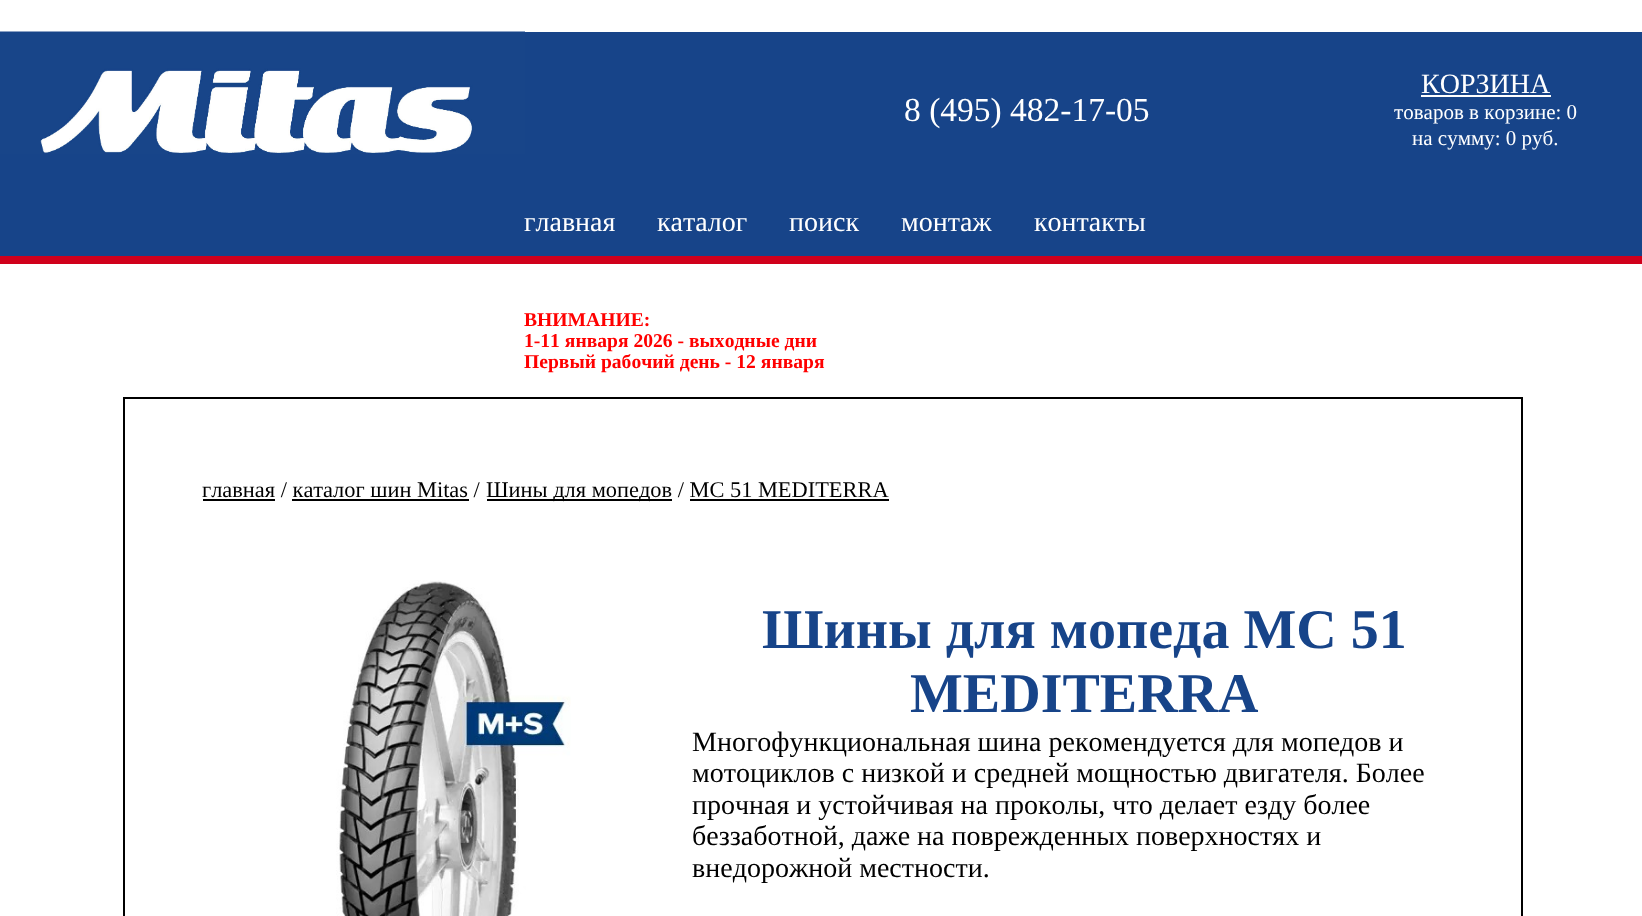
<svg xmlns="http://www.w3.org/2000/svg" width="1642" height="916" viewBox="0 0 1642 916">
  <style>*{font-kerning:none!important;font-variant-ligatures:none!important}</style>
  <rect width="100%" height="100%" fill="rgb(255,255,255)"/>
  <rect x="0" y="32" width="1642" height="224" fill="rgb(23,68,137)"/>
  <image x="0" y="31" width="525" height="123" href="pic1.png"/>
  <text x="904" y="121" font-family="Liberation Serif" font-size="33.5" fill="rgb(255,255,255)">8 (495) 482-17-05</text>
  <text x="1421" y="93" font-family="Liberation Serif" font-size="28" fill="rgb(255,255,255)">КОРЗИНА</text>
  <rect x="1421" y="95" width="130" height="2" fill="rgb(255,255,255)"/>
  <g font-family="Liberation Serif" font-size="21" fill="rgb(255,255,255)">
    <text x="1394" y="119">товаров в корзине: 0</text>
    <text x="1412" y="145">на сумму: 0 руб.</text>
  </g>
  <g font-family="Liberation Serif" font-size="28" fill="rgb(255,255,255)">
    <text x="524" y="231">главная</text>
    <text x="657" y="231">каталог</text>
    <text x="789" y="231">поиск</text>
    <text x="901" y="231">монтаж</text>
    <text x="1034" y="231">контакты</text>
  </g>
  <rect x="0" y="256" width="1642" height="8" fill="rgb(208,0,27)"/>
  <g font-family="Liberation Serif" font-size="19.6" font-weight="bold" fill="rgb(255,0,0)">
    <text>
      <tspan x="524" y="326">ВНИМАНИЕ:</tspan>
      <tspan x="524" y="347">1-11 января 2026 - выходные дни</tspan>
      <tspan x="524" y="368">Первый рабочий день - 12 января</tspan>
    </text>
  </g>
  <rect x="124" y="398" width="1398" height="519" fill="none" stroke="rgb(0,0,0)" stroke-width="2"/>
  <text x="202" y="497" font-family="Liberation Serif" font-size="22.4" fill="rgb(0,0,0)">главная / каталог шин Mitas /</text>
  <rect x="203" y="499" width="72" height="2" fill="rgb(0,0,0)"/>
  <rect x="487" y="499" width="185" height="2" fill="rgb(0,0,0)"/>
  <text x="486" y="497" font-family="Liberation Serif" font-size="22.4" fill="rgb(0,0,0)">Шины для мопедов / MC 51 MEDITERRA</text>
  <rect x="292" y="499" width="177" height="2" fill="rgb(0,0,0)"/>
  <rect x="690" y="499" width="199" height="2" fill="rgb(0,0,0)"/>
  <image x="336" y="580" width="235" height="336" href="pic2.png"/>
  <g font-family="Liberation Serif" font-size="56" font-weight="bold" fill="rgb(23,68,137)">
    <text x="762" y="648">Шины для мопеда MC 51</text>
    <text x="910" y="712">MEDITERRA</text>
  </g>
  <g font-family="Liberation Serif" font-size="28" fill="rgb(0,0,0)">
    <text>
      <tspan x="692" y="751">Многофункциональная шина рекомендуется для мопедов и</tspan>
      <tspan x="692" y="782">мотоциклов с низкой и средней мощностью двигателя. Более</tspan>
      <tspan x="692" y="814">прочная и устойчивая на проколы, что делает езду более</tspan>
      <tspan x="692" y="845">беззаботной, даже на поврежденных поверхностях и</tspan>
      <tspan x="692" y="877">внедорожной местности.</tspan>
    </text>
  </g>
</svg>
